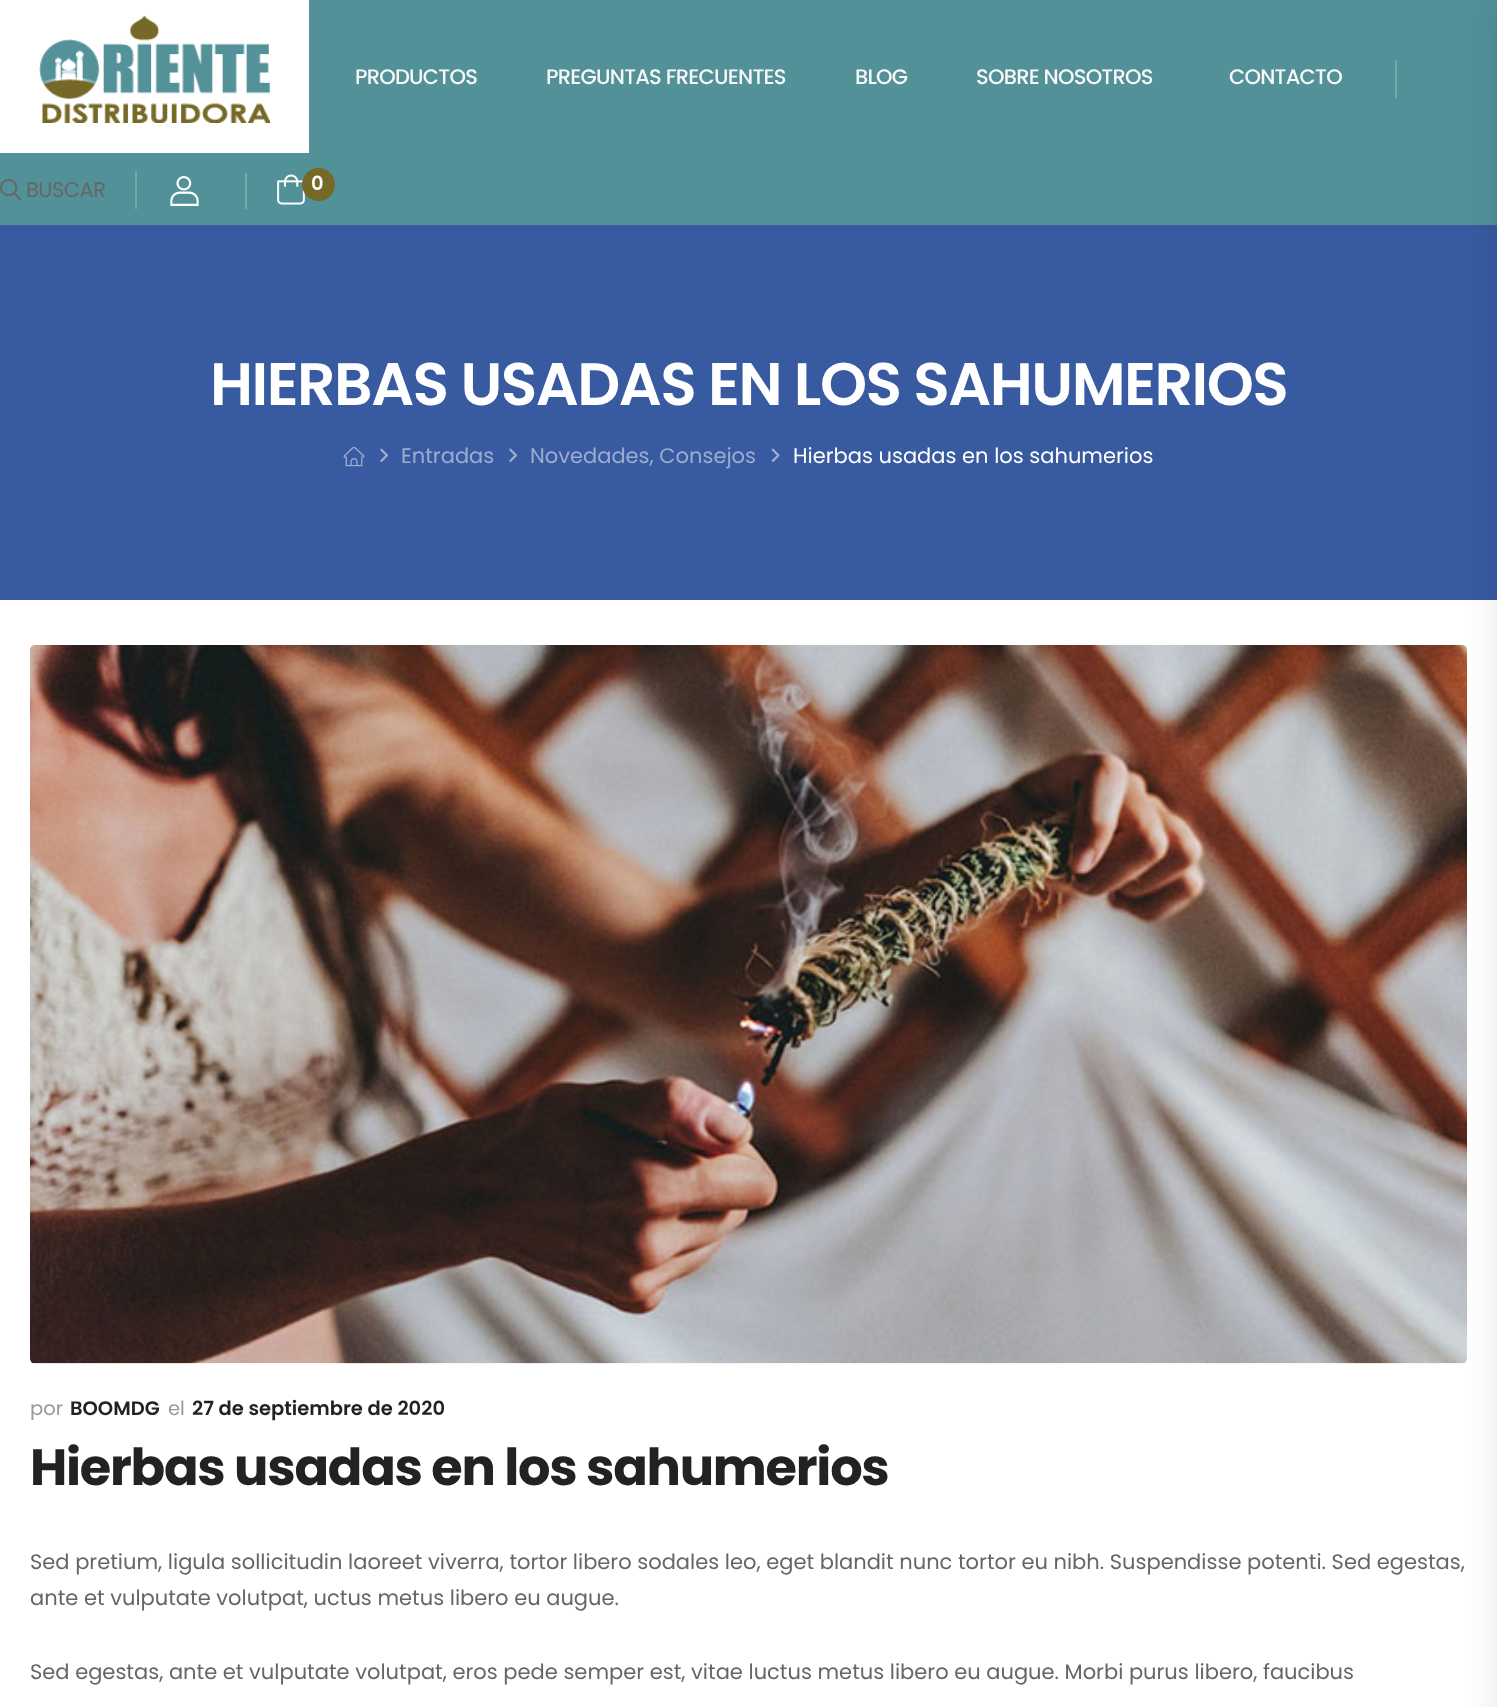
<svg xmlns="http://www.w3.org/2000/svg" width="1497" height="1707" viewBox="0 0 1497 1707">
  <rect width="100%" height="100%" fill="rgb(255,255,255)"/>
  <rect x="0" y="0" width="1497" height="225" fill="rgb(82,145,152)"/>
  <rect x="0" y="0" width="309" height="153" fill="rgb(255,255,255)"/>
  <image x="39" y="15" width="231" height="108" href="pic1.png"/>
  <g font-family="Poppins" font-size="21" font-weight="500" letter-spacing="-0.75" fill="rgb(248,248,248)">
    <text x="355" y="84">PRODUCTOS</text>
    <text x="546" y="84">PREGUNTAS FRECUENTES</text>
    <text x="855" y="84">BLOG</text>
    <text x="976" y="84">SOBRE NOSOTROS</text>
    <text x="1229" y="84">CONTACTO</text>
  </g>
  <rect x="1395" y="60" width="2" height="38" fill="rgb(117,167,173)"/>
  <image x="0" y="179" width="21" height="21" href="pic2.png"/>
  <text x="26" y="197" font-family="Poppins" font-size="21" letter-spacing="-0.5" fill="rgb(102,102,102)">BUSCAR</text>
  <rect x="135" y="171" width="2" height="38" fill="rgb(117,167,173)"/>
  <image x="170" y="176" width="29" height="30" href="pic3.png"/>
  <rect x="245" y="173" width="2" height="36" fill="rgb(117,167,173)"/>
  <image x="277" y="174" width="28" height="31" href="pic4.png"/>
  <circle cx="318.5" cy="184.5" r="16.5" fill="rgb(118,104,38)"/>
  <text x="311" y="190" font-family="Poppins" font-size="19.5" font-weight="600" letter-spacing="-0.5" fill="rgb(255,255,255)">0</text>
  <rect x="0" y="225" width="1497" height="375" fill="rgb(56,90,161)"/>
  <image x="30" y="645" width="1437" height="719" href="pic8.png"/>
  <rect x="1497" y="3" width="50" height="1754" fill="rgba(0,0,0,0.1)" filter="blur(16.5px)"/>
  <text x="210" y="405" font-family="Poppins" font-size="60" font-weight="600" letter-spacing="-1.5" fill="rgb(255,255,255)">HIERBAS USADAS EN LOS SAHUMERIOS</text>
  <image x="343" y="446" width="22" height="21" href="pic5.png"/>
  <image x="380" y="448" width="8" height="14" href="pic6.png"/>
  <text x="401" y="463" font-family="Poppins" font-size="21" fill="rgb(156,173,208)">Entradas</text>
  <image x="509" y="448" width="8" height="14" href="pic6.png"/>
  <text x="530" y="463" font-family="Poppins" font-size="21" fill="rgb(156,173,208)">Novedades, Consejos</text>
  <image x="771" y="448" width="9" height="14" href="pic7.png"/>
  <text x="793" y="463" font-family="Poppins" font-size="21" fill="rgb(255,255,255)">Hierbas usadas en los sahumerios</text>
  <text x="30" y="1415" font-family="Poppins" font-size="19.5" fill="rgb(153,153,153)">por</text>
  <text x="70" y="1415" font-family="Poppins" font-size="19.5" font-weight="600" fill="rgb(34,34,34)">BOOMDG</text>
  <text x="168" y="1415" font-family="Poppins" font-size="19.5" fill="rgb(153,153,153)">el</text>
  <text x="192" y="1415" font-family="Poppins" font-size="19.5" font-weight="600" fill="rgb(34,34,34)">27 de septiembre de 2020</text>
  <text x="30" y="1485" font-family="Poppins" font-size="51" font-weight="bold" letter-spacing="-1.25" fill="rgb(34,34,34)">Hierbas usadas en los sahumerios</text>
  <g font-family="Poppins" font-size="21" fill="rgb(102,102,102)">
    <text>
      <tspan x="30" y="1569">Sed pretium, ligula sollicitudin laoreet viverra, tortor libero sodales leo, eget blandit nunc tortor eu nibh. Suspendisse potenti. Sed egestas,</tspan>
      <tspan x="30" y="1605">ante et vulputate volutpat, uctus metus libero eu augue.</tspan>
    </text>
    <text x="30" y="1679">Sed egestas, ante et vulputate volutpat, eros pede semper est, vitae luctus metus libero eu augue. Morbi purus libero, faucibus</text>
  </g>
</svg>
